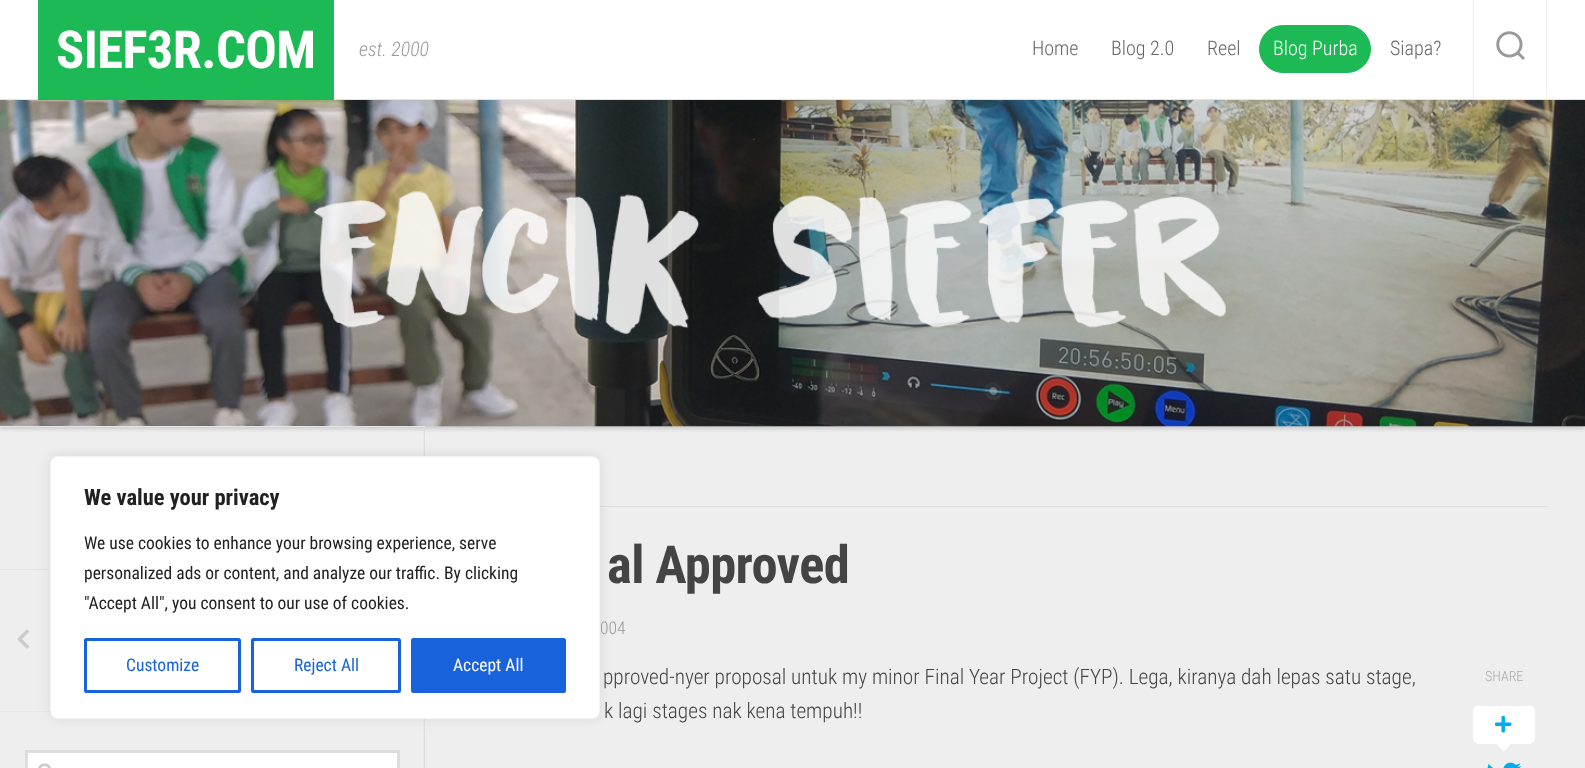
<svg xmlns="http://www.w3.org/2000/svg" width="1585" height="768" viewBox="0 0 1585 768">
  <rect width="100%" height="100%" fill="rgb(238,238,238)"/>
  <rect x="0" y="0" width="1585" height="99" fill="rgb(255,255,255)"/>
  <rect x="0" y="99" width="1585" height="1" fill="rgb(230,230,230)"/>
  <rect x="0" y="103" width="1585" height="326" fill="rgba(0,0,0,0.15)" filter="blur(2px)"/>
  <rect x="38" y="0" width="296" height="100" fill="rgb(29,185,84)"/>
  <text x="56" y="68" font-family="Roboto Condensed" font-size="52.5" font-weight="bold" letter-spacing="-0.6" fill="rgb(255,255,255)">SIEF3R.COM</text>
  <text x="359" y="56" font-family="Roboto Condensed" font-size="20" font-weight="300" font-style="italic" fill="rgb(153,153,153)">est. 2000</text>
  <g font-family="Roboto Condensed" font-size="20" font-weight="300" fill="rgb(102,102,102)">
    <text x="1032" y="55">Home</text>
    <text x="1111" y="55">Blog 2.0</text>
    <text x="1207" y="55">Reel</text>
  </g>
  <rect x="1259.5" y="25.5" width="111" height="47" rx="23.5" fill="rgb(29,185,84)" stroke="rgb(29,185,84)"/>
  <text x="1273" y="55" font-family="Roboto Condensed" font-size="20" font-weight="300" fill="rgb(255,255,255)">Blog Purba</text>
  <text x="1390" y="55" font-family="Roboto Condensed" font-size="20" font-weight="300" fill="rgb(102,102,102)">Siapa?</text>
  <rect x="1546" y="0" width="1" height="99" fill="rgb(238,238,238)"/>
  <rect x="1473" y="0" width="1" height="99" fill="rgb(238,238,238)"/>
  <image x="1496" y="31" width="29" height="29" href="pic1.png"/>
  <image x="0" y="100" width="1585" height="327" href="pic2.png"/>
  <image x="423" y="427" width="2" height="341" href="pic3.png"/>
  <rect x="0" y="426" width="425" height="1" fill="rgb(229,229,229)"/>
  <rect x="0" y="569" width="50" height="1" fill="rgb(229,229,229)"/>
  <rect x="0" y="711" width="51" height="1" fill="rgb(229,229,229)"/>
  <image x="17" y="629" width="12" height="20" href="pic4.png"/>
  <rect x="26.5" y="751.5" width="372" height="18" fill="rgb(255,255,255)" stroke="rgb(221,221,221)" stroke-width="3"/>
  <image x="38" y="763" width="13" height="5" href="pic5.png"/>
  <rect x="600" y="506" width="948" height="1" fill="rgb(221,221,221)"/>
  <text x="607" y="583" font-family="Roboto Condensed" font-size="52.5" font-weight="bold" letter-spacing="-0.6" fill="rgb(68,68,68)">al Approved</text>
  <text x="600" y="634" font-family="Roboto Condensed" font-size="17.5" font-weight="300" fill="rgb(153,153,153)">004</text>
  <g font-family="Roboto Condensed" font-size="21.25" font-weight="300" fill="rgb(68,68,68)">
    <text x="603" y="684">pproved-nyer proposal untuk my minor Final Year Project (FYP). Lega, kiranya dah lepas satu stage,</text>
    <text x="604" y="718">k lagi stages nak kena tempuh!!</text>
  </g>
  <text x="1485" y="681" font-family="Roboto Condensed" font-size="14" font-weight="300" fill="rgb(170,170,170)">SHARE</text>
  <rect x="1473" y="706" width="62" height="38" rx="5" fill="rgb(255,255,255)"/>
  <image x="1495" y="716" width="17" height="17" href="pic6.png"/>
  <path d="M1496 744H1511L1504 751Z" fill="rgb(255,255,255)"/>
  <image x="1487" y="762" width="35" height="6" href="pic7.png"/>
  <rect x="50" y="455" width="550" height="263" rx="8" fill="rgba(172,171,171,0.3)" filter="blur(6px)"/>
  <rect x="50.5" y="456.5" width="549" height="262" rx="7.5" fill="rgb(255,255,255)" stroke="rgb(244,244,244)"/>
  <text x="84" y="505" font-family="Roboto Condensed" font-size="22.5" font-weight="bold" fill="rgb(33,33,33)">We value your privacy</text>
  <g font-family="Roboto Condensed" font-size="17.5" fill="rgb(33,33,33)">
    <text>
      <tspan x="84" y="549">We use cookies to enhance your browsing experience, serve</tspan>
      <tspan x="84" y="579">personalized ads or content, and analyze our traffic. By clicking</tspan>
      <tspan x="84" y="609">"Accept All", you consent to our use of cookies.</tspan>
    </text>
  </g>
  <rect x="85.5" y="639.5" width="154" height="52" rx="1" fill="none" stroke="rgb(24,99,220)" stroke-width="3"/>
  <text x="126" y="671" font-family="Roboto Condensed" font-size="17.5" fill="rgb(24,99,220)">Customize</text>
  <rect x="252.5" y="639.5" width="147" height="52" rx="1" fill="none" stroke="rgb(24,99,220)" stroke-width="3"/>
  <text x="294" y="671" font-family="Roboto Condensed" font-size="17.5" fill="rgb(24,99,220)">Reject All</text>
  <rect x="412.5" y="639.5" width="152" height="52" rx="1" fill="rgb(24,99,220)" stroke="rgb(24,99,220)" stroke-width="3"/>
  <text x="453" y="671" font-family="Roboto Condensed" font-size="17.5" fill="rgb(255,255,255)">Accept All</text>
</svg>
